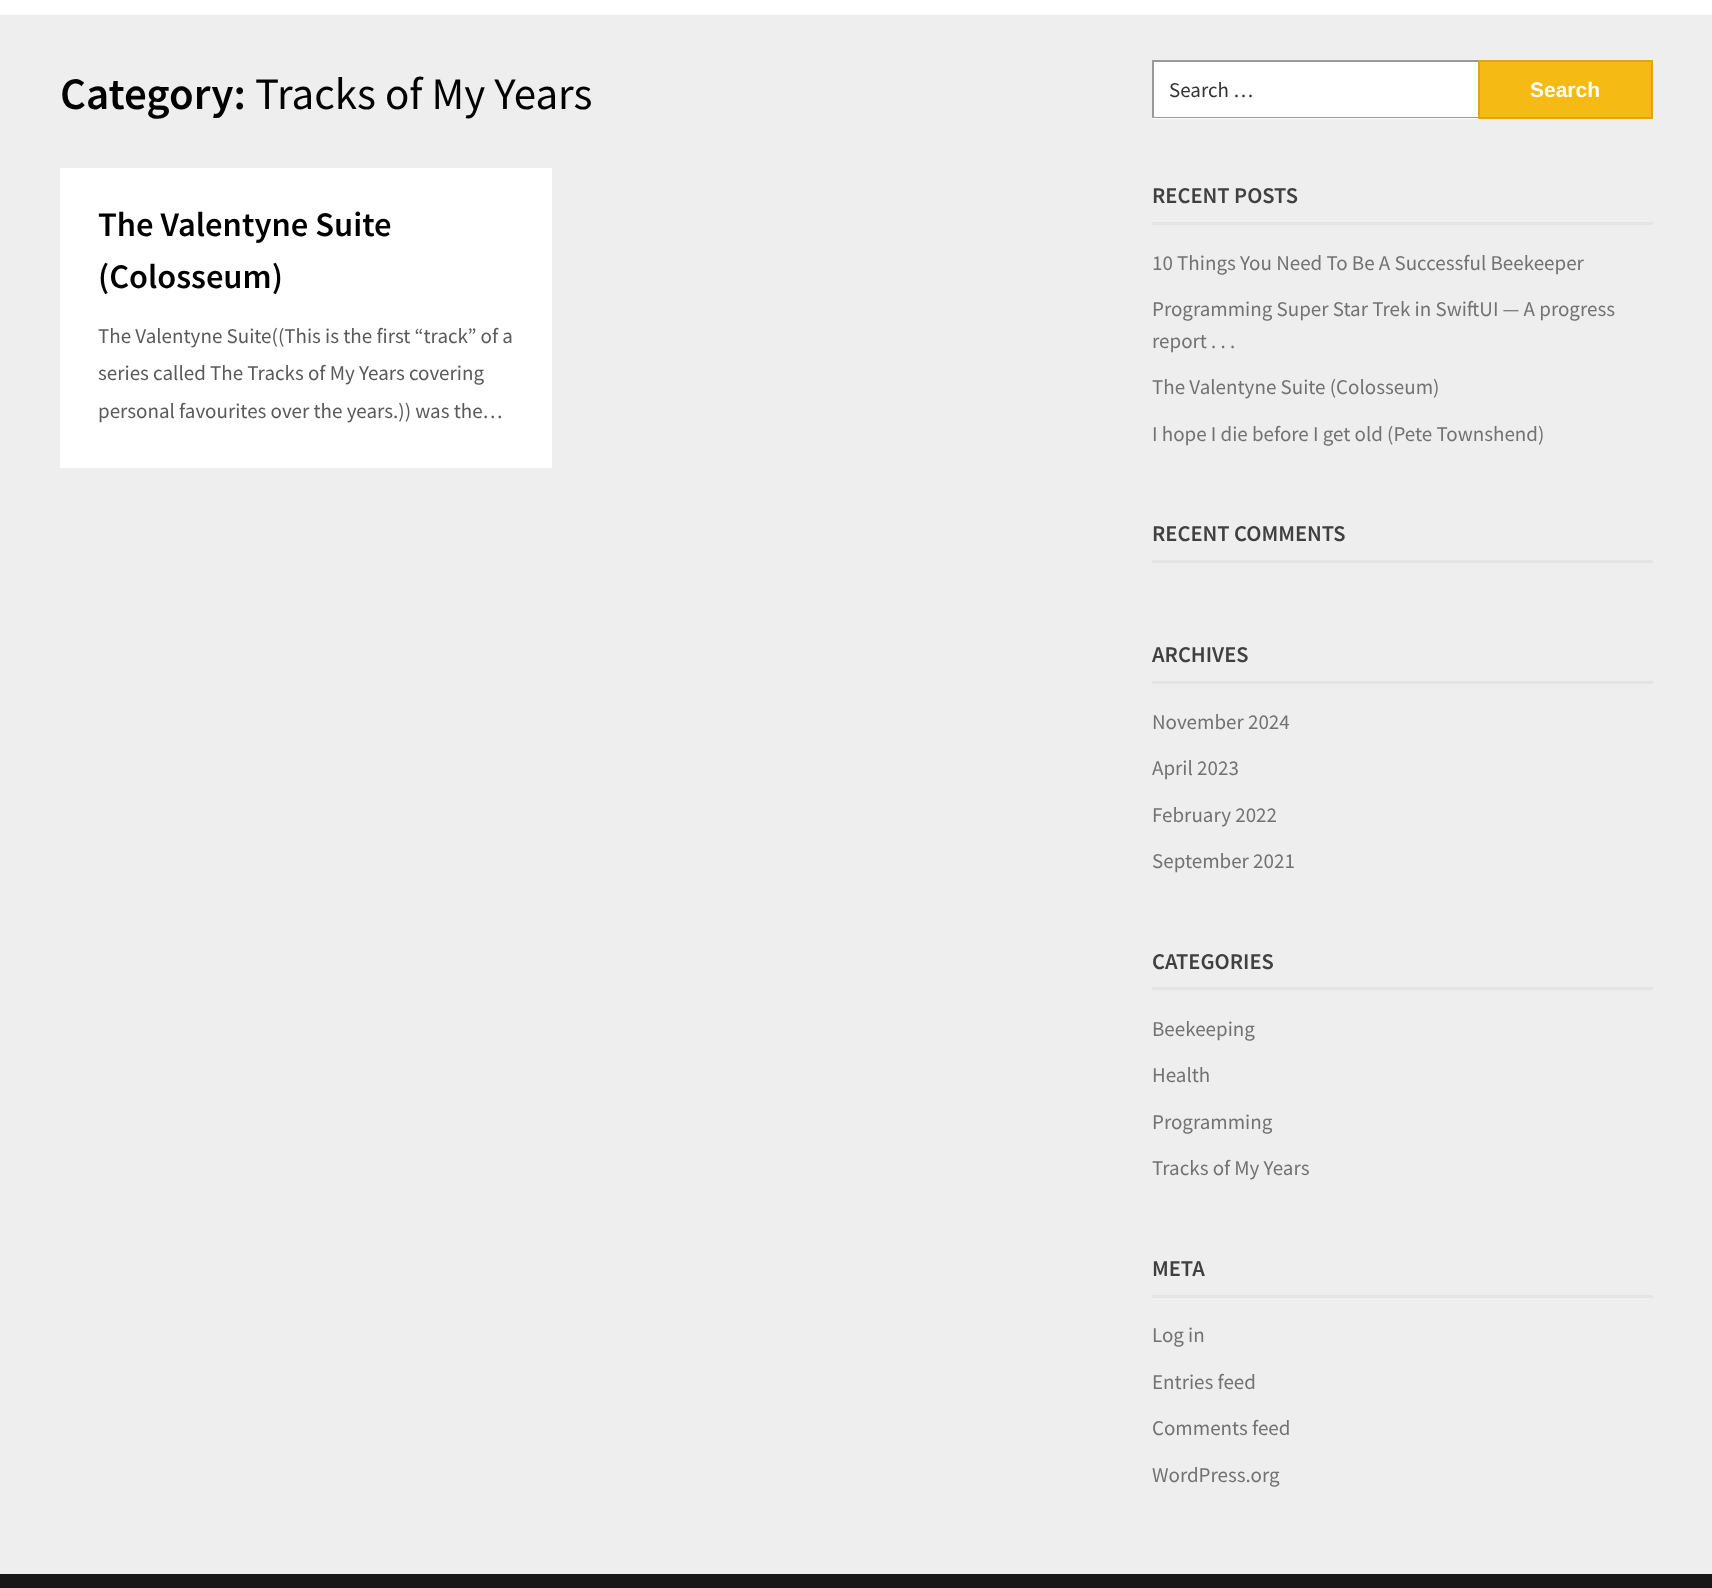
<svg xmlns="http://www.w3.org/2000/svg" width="1712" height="1588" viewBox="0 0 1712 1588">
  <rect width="100%" height="100%" fill="rgb(238,238,238)"/>
  <rect x="0" y="0" width="1712" height="15" fill="rgb(255,255,255)"/>
  <text x="60" y="109" font-family="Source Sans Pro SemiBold" font-size="45" font-weight="600" fill="rgb(0,0,0)">Category:</text>
  <text x="255" y="109" font-family="Source Sans Pro" font-size="45" fill="rgb(0,0,0)">Tracks of My Years</text>
  <rect x="60" y="168" width="492" height="300" fill="rgb(255,255,255)"/>
  <g font-family="Source Sans Pro SemiBold" font-size="34.5" font-weight="600" fill="rgb(0,0,0)">
    <text>
      <tspan x="98" y="236">The Valentyne Suite</tspan>
      <tspan x="98" y="288">(Colosseum)</tspan>
    </text>
  </g>
  <g font-family="Source Sans Pro" font-size="21" fill="rgb(90,90,90)">
    <text>
      <tspan x="98" y="343">The Valentyne Suite((This is the first “track” of a</tspan>
      <tspan x="98" y="380">series called The Tracks of My Years covering</tspan>
      <tspan x="98" y="418">personal favourites over the years.)) was the…</tspan>
    </text>
  </g>
  <rect x="1152" y="60" width="326" height="59" fill="rgb(255,255,255)"/>
  <path d="M1152 60H1478V62H1154Z" fill="rgb(153,153,153)"/>
  <path d="M1478 118H1152L1154 117H1478Z" fill="rgb(153,153,153)"/>
  <path d="M1152 118V60L1154 62V117Z" fill="rgba(0,0,0,0.4)"/>
  <text x="1169" y="97" font-family="Source Sans Pro" font-size="21" fill="rgb(51,51,51)">Search …</text>
  <rect x="1479" y="61" width="173" height="57" fill="rgb(245,186,20)" stroke="rgb(221,167,18)" stroke-width="2"/>
  <text x="1530" y="97" font-family="Liberation Sans" font-size="21" font-weight="bold" fill="rgb(255,255,255)">Search</text>
  <rect x="1152" y="222" width="501" height="3" fill="rgb(228,228,228)"/>
  <text x="1152" y="203" font-family="Source Sans Pro SemiBold" font-size="22.5" font-weight="600" fill="rgb(64,64,64)">RECENT POSTS</text>
  <g font-family="Source Sans Pro" font-size="21" fill="rgb(114,114,114)">
    <text x="1152" y="270">10 Things You Need To Be A Successful Beekeeper</text>
    <text>
      <tspan x="1152" y="316">Programming Super Star Trek in SwiftUI — A progress</tspan>
      <tspan x="1152" y="348">report . . .</tspan>
    </text>
    <text x="1152" y="394">The Valentyne Suite (Colosseum)</text>
    <text x="1152" y="441">I hope I die before I get old (Pete Townshend)</text>
  </g>
  <rect x="1152" y="560" width="501" height="3" fill="rgb(228,228,228)"/>
  <text x="1152" y="541" font-family="Source Sans Pro SemiBold" font-size="22.5" font-weight="600" fill="rgb(64,64,64)">RECENT COMMENTS</text>
  <rect x="1152" y="681" width="501" height="3" fill="rgb(228,228,228)"/>
  <text x="1152" y="662" font-family="Source Sans Pro SemiBold" font-size="22.5" font-weight="600" fill="rgb(64,64,64)">ARCHIVES</text>
  <g font-family="Source Sans Pro" font-size="21" fill="rgb(114,114,114)">
    <text x="1152" y="729">November 2024</text>
    <text x="1152" y="775">April 2023</text>
    <text x="1152" y="822">February 2022</text>
    <text x="1152" y="868">September 2021</text>
  </g>
  <rect x="1152" y="987" width="501" height="3" fill="rgb(228,228,228)"/>
  <text x="1152" y="969" font-family="Source Sans Pro SemiBold" font-size="22.5" font-weight="600" fill="rgb(64,64,64)">CATEGORIES</text>
  <g font-family="Source Sans Pro" font-size="21" fill="rgb(114,114,114)">
    <text x="1152" y="1036">Beekeeping</text>
    <text x="1152" y="1082">Health</text>
    <text x="1152" y="1129">Programming</text>
    <text x="1152" y="1175">Tracks of My Years</text>
  </g>
  <rect x="1152" y="1295" width="501" height="3" fill="rgb(228,228,228)"/>
  <text x="1152" y="1276" font-family="Source Sans Pro SemiBold" font-size="22.5" font-weight="600" fill="rgb(64,64,64)">META</text>
  <g font-family="Source Sans Pro" font-size="21" fill="rgb(114,114,114)">
    <text x="1152" y="1342">Log in</text>
    <text x="1152" y="1389">Entries feed</text>
    <text x="1152" y="1435">Comments feed</text>
    <text x="1152" y="1482">WordPress.org</text>
  </g>
  <rect x="0" y="1574" width="1712" height="14" fill="rgb(24,24,24)"/>
</svg>
